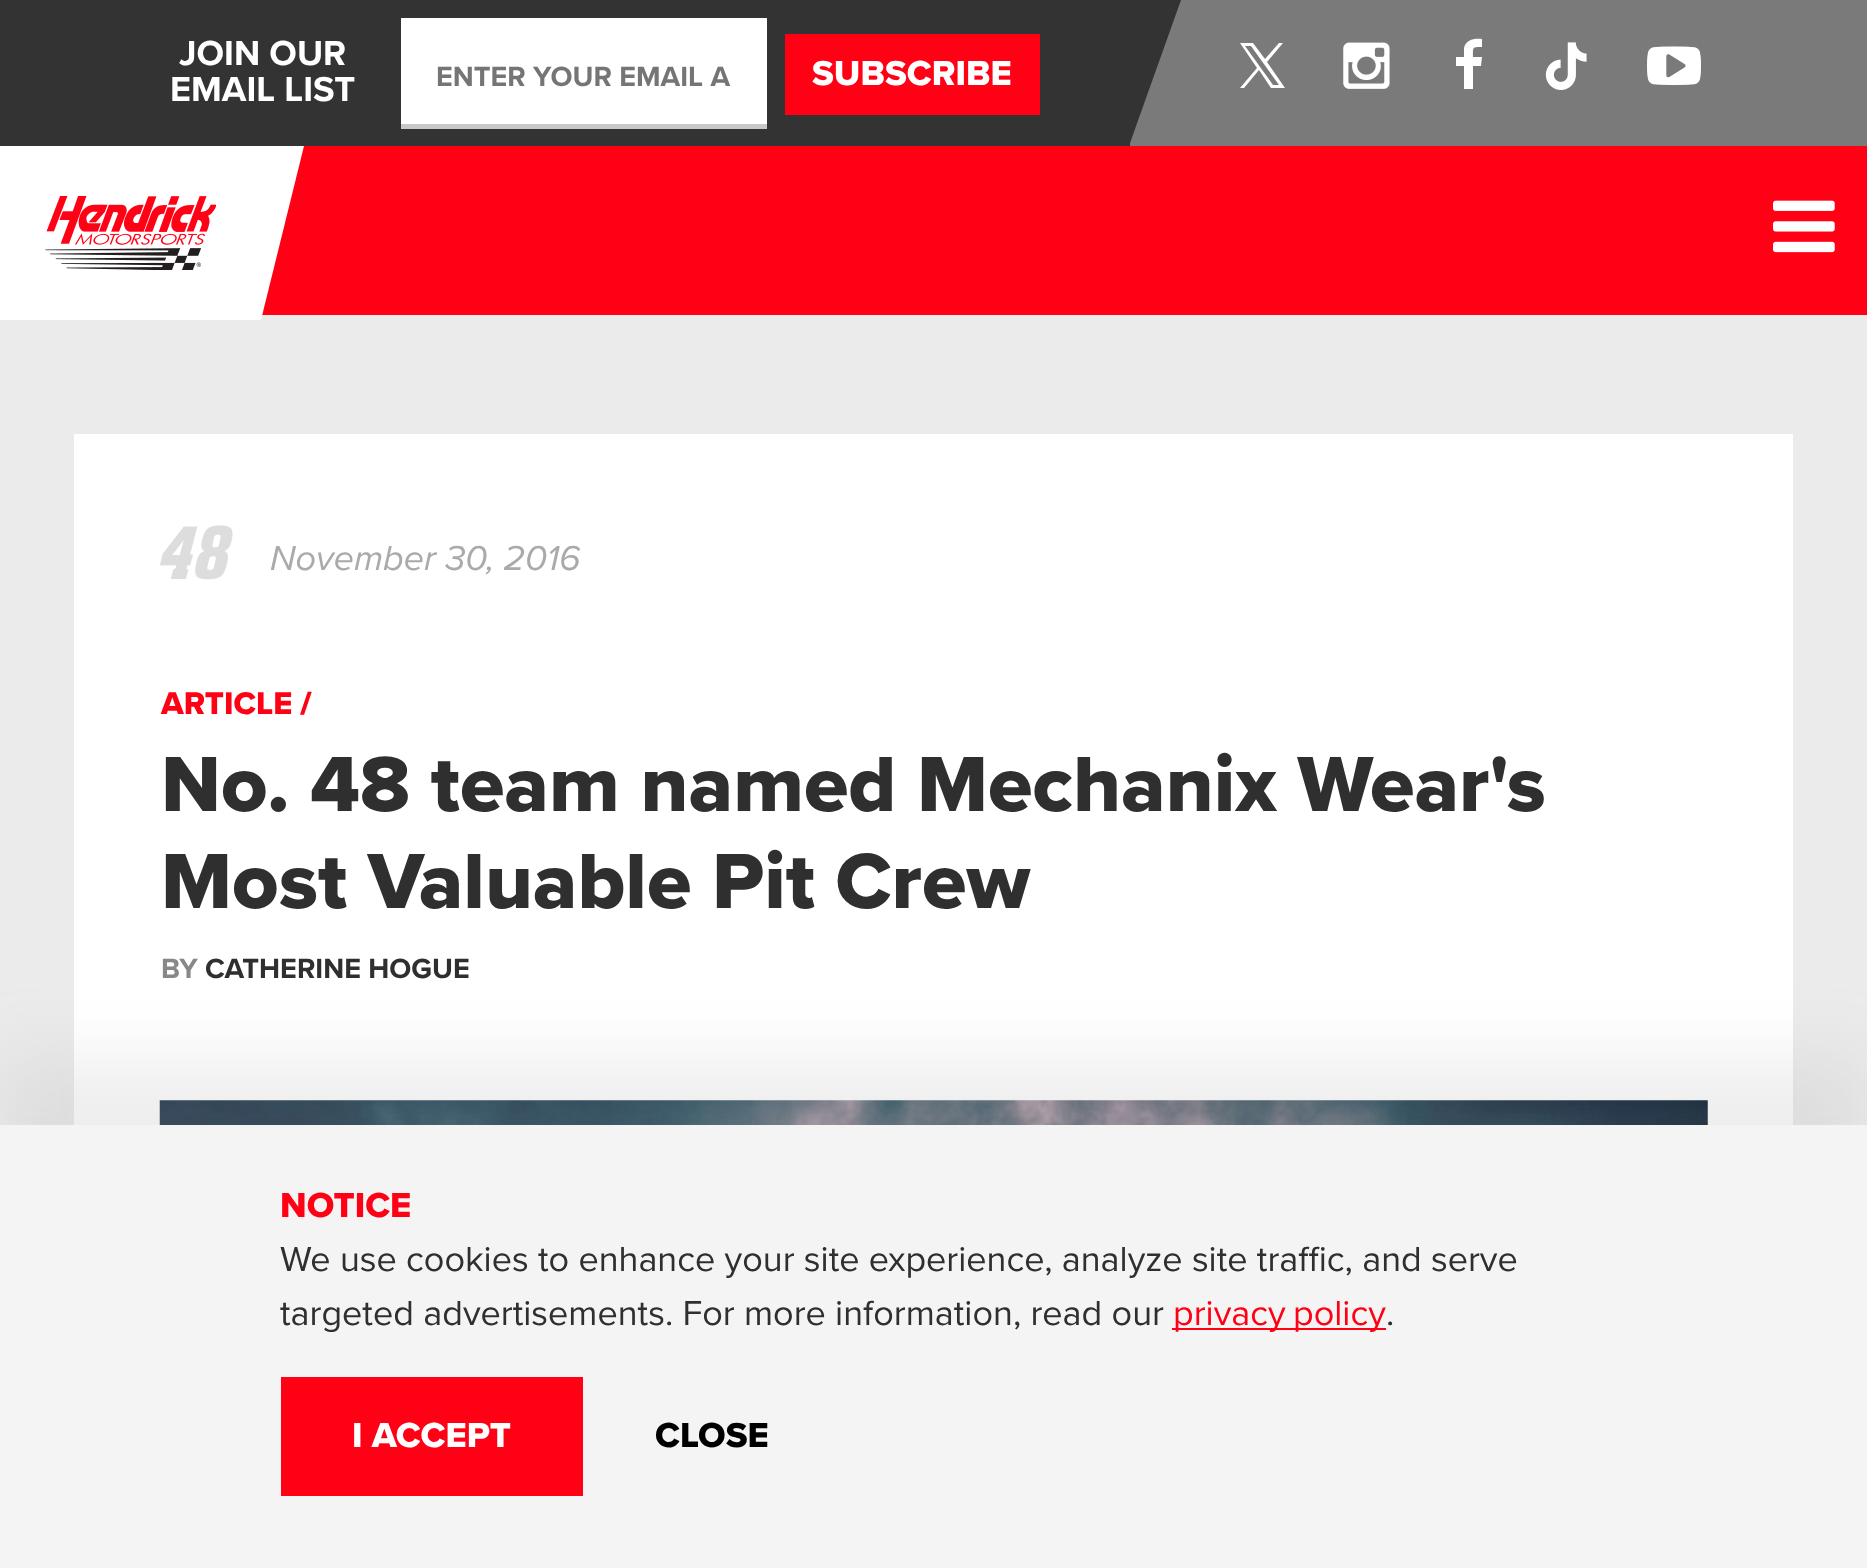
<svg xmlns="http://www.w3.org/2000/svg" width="1867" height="1568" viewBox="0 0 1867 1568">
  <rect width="100%" height="100%" fill="rgb(235,235,235)"/>
  <rect x="0" y="0" width="1181" height="146" fill="rgb(51,51,51)"/>
  <g font-family="Proxima Nova" font-size="36" font-weight="bold" fill="rgb(255,255,255)">
    <text x="179" y="65">JOIN OUR</text>
    <text x="170" y="101">EMAIL LIST</text>
  </g>
  <rect x="401" y="18" width="366" height="106" fill="rgb(255,255,255)"/>
  <rect x="401" y="124" width="366" height="5" fill="rgb(200,200,200)"/>
  <text x="436" y="86" font-family="Proxima Nova" font-size="28.75" font-weight="bold" fill="rgb(117,117,117)">ENTER YOUR EMAIL A</text>
  <rect x="785" y="34" width="255" height="81" fill="rgb(255,0,21)"/>
  <text x="812" y="85" font-family="Proxima Nova" font-size="36" font-weight="800" fill="rgb(255,255,255)">SUBSCRIBE</text>
  <path d="M1181 0L1130 143V146H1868V0Z" fill="rgb(123,122,122)"/>
  <path d="M1267 62L1283 43H1279L1265 59L1253 43H1240L1257 68L1240 88H1244L1259 70L1271 88H1285M1245 46H1251L1279 85H1273" fill="rgb(255,255,255)"/>
  <image x="1343" y="42" width="47" height="47" href="pic1.png"/>
  <path d="M1482 39V47C1472 47 1473 47 1473 57H1482L1481 66H1473V89H1464V66H1456V57H1464V48C1466 39 1475 38 1482 39Z" fill="rgb(255,255,255)"/>
  <image x="1545" y="42" width="42" height="48" href="pic2.png"/>
  <image x="1647" y="46" width="54" height="40" href="pic3.png"/>
  <rect x="262" y="146" width="1605" height="169" fill="rgb(255,0,21)"/>
  <path d="M43 146H304L261 320H0Z" fill="rgb(255,255,255)"/>
  <rect x="0" y="146" width="43" height="173" fill="rgb(255,255,255)"/>
  <image x="45" y="196" width="171" height="74" href="pic4.png"/>
  <image x="1773" y="200" width="62" height="53" href="pic5.png"/>
  <rect x="74" y="434" width="1719" height="691" fill="rgb(255,255,255)"/>
  <image x="160" y="525" width="73" height="55" href="pic6.png"/>
  <text x="270" y="570" font-family="Proxima Nova" font-size="36" font-style="italic" fill="rgb(170,170,170)">November 30, 2016</text>
  <text x="161" y="714" font-family="Proxima Nova" font-size="32.5" font-weight="800" fill="rgb(255,0,21)">ARTICLE</text>
  <text x="300" y="714" font-family="Proxima Nova" font-size="32.5" font-weight="900" fill="rgb(255,0,21)">/</text>
  <g font-family="Proxima Nova" font-size="81" font-weight="800" fill="rgb(47,47,47)">
    <text>
      <tspan x="161" y="811">No. 48 team named Mechanix Wear's</tspan>
      <tspan x="161" y="908">Most Valuable Pit Crew</tspan>
    </text>
  </g>
  <text x="161" y="978" font-family="Proxima Nova" font-size="28.75" font-weight="bold" fill="rgb(136,136,136)">BY</text>
  <text x="205" y="978" font-family="Proxima Nova" font-size="28.75" font-weight="bold" fill="rgb(47,47,47)">CATHERINE HOGUE</text>
  <image x="159" y="1100" width="1549" height="25" href="pic7.png"/>
  <rect x="0" y="1058" width="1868" height="443" fill="rgba(170,170,170,0.2)" filter="blur(34px)"/>
  <rect x="0" y="1125" width="1867" height="443" fill="rgb(244,244,244)"/>
  <text x="280" y="1217" font-family="Proxima Nova" font-size="36" font-weight="800" fill="rgb(255,0,21)">NOTICE</text>
  <g font-family="Proxima Nova" font-size="36" fill="rgb(47,47,47)">
    <text>
      <tspan x="280" y="1271">We use cookies to enhance your site experience, analyze site traffic, and serve</tspan>
      <tspan x="280" y="1325">targeted advertisements. For more information, read our</tspan>
    </text>
  </g>
  <rect x="1172" y="1328" width="214" height="2" fill="rgb(255,0,21)"/>
  <text x="1173" y="1325" word-spacing="-2" font-family="Proxima Nova" font-size="36" fill="rgb(255,0,21)">privacy policy</text>
  <text x="1386" y="1325" font-family="Proxima Nova" font-size="36" fill="rgb(47,47,47)">.</text>
  <rect x="281" y="1377" width="302" height="119" fill="rgb(255,0,21)"/>
  <text x="352" y="1447" font-family="Proxima Nova" font-size="36" font-weight="800" fill="rgb(255,255,255)">I ACCEPT</text>
  <text x="655" y="1447" font-family="Proxima Nova" font-size="36" font-weight="800" fill="rgb(0,0,0)">CLOSE</text>
</svg>
